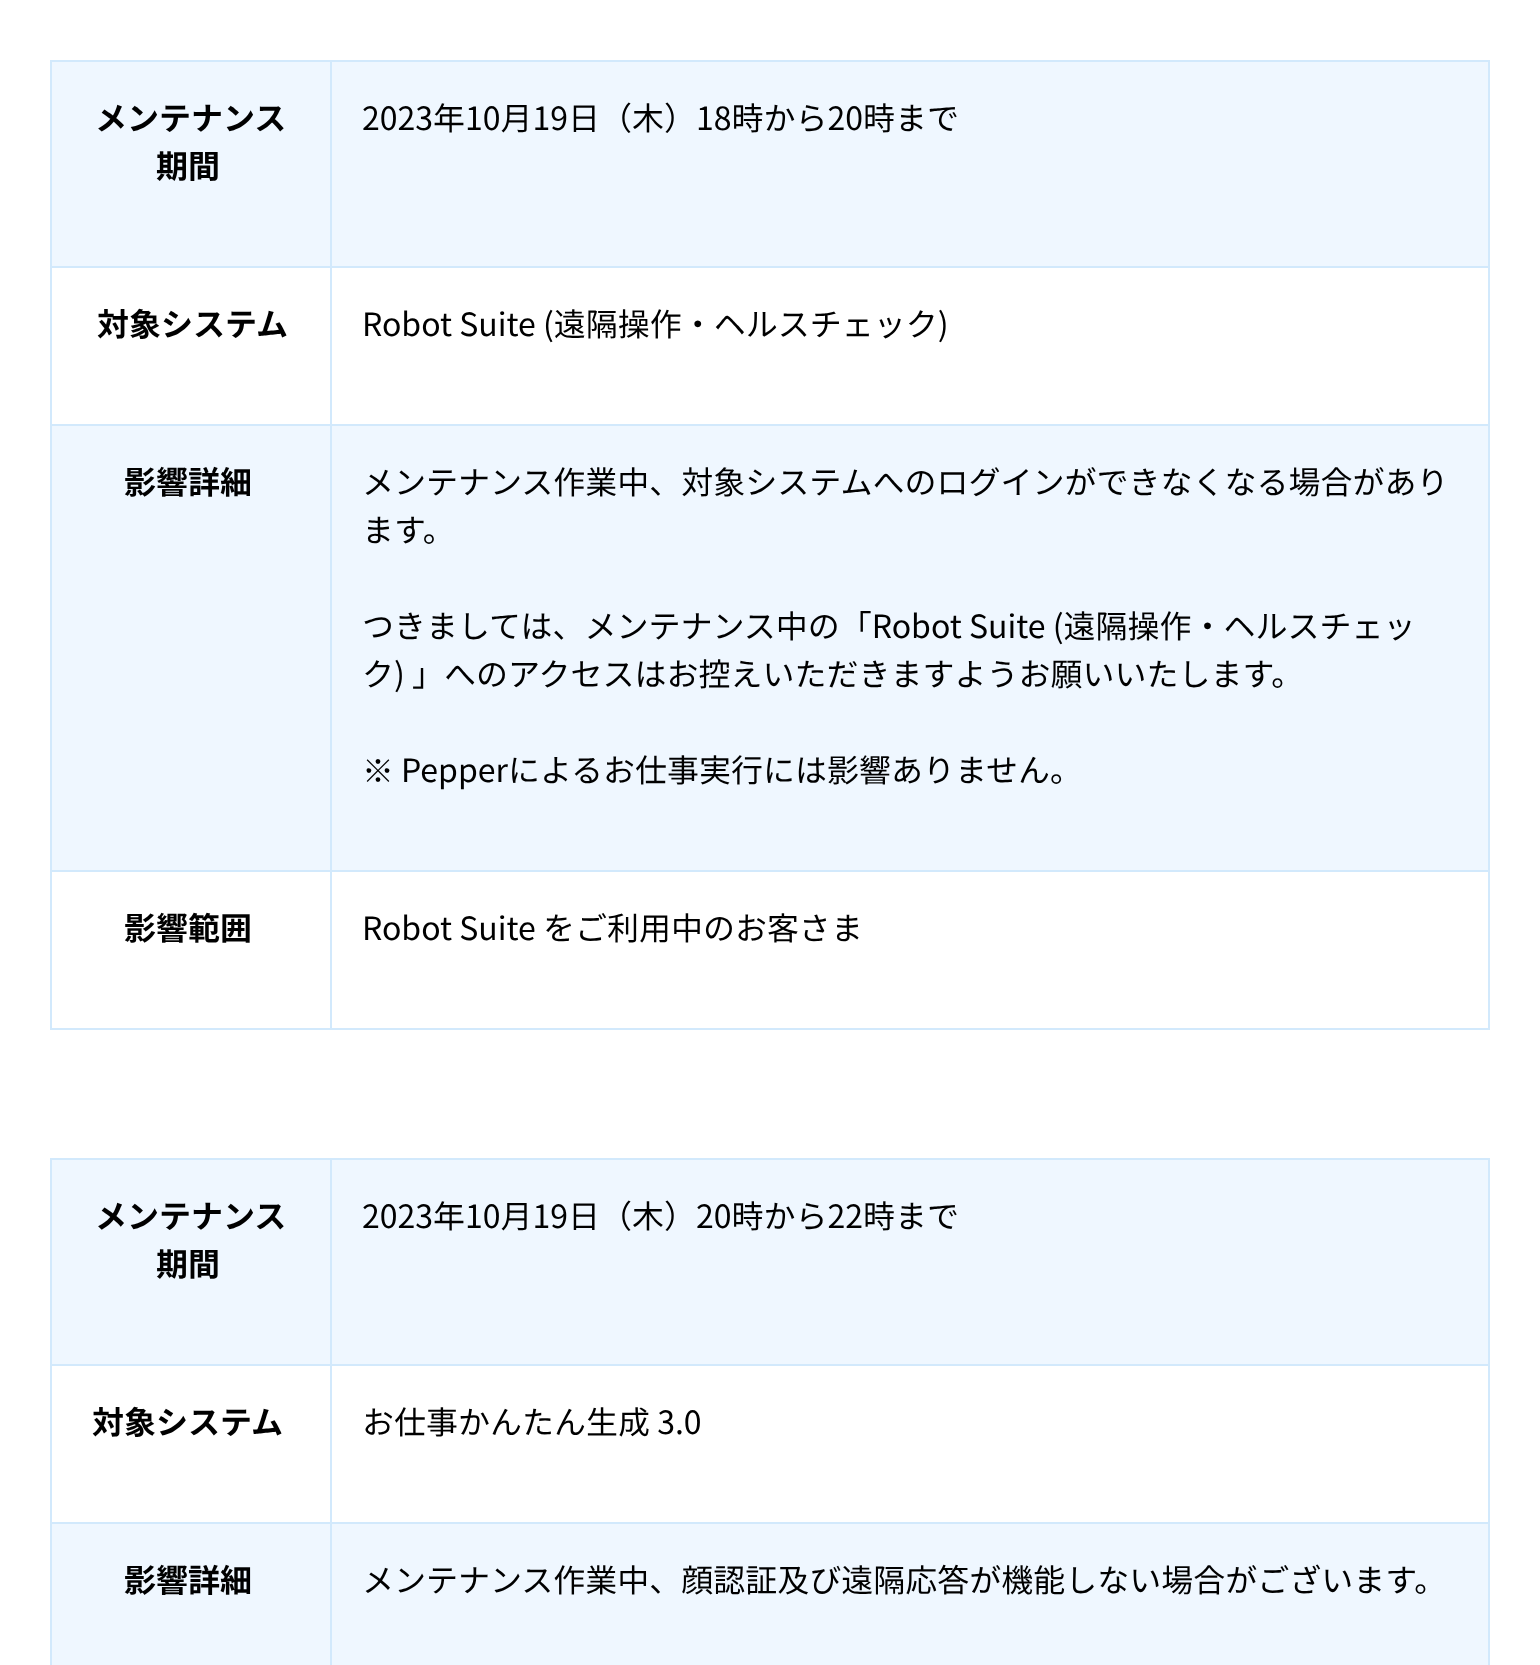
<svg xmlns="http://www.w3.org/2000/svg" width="1540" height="1665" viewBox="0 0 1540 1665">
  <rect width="100%" height="100%" fill="rgb(255,255,255)"/>
  <rect x="52" y="62" width="1436" height="204" fill="rgb(239,247,255)"/>
  <rect x="330" y="60" width="1160" height="2" fill="rgb(210,233,252)"/>
  <rect x="330" y="266" width="1160" height="2" fill="rgb(210,233,252)"/>
  <rect x="330" y="424" width="1160" height="2" fill="rgb(210,233,252)"/>
  <rect x="52" y="426" width="1436" height="444" fill="rgb(239,247,255)"/>
  <rect x="330" y="870" width="1160" height="2" fill="rgb(210,233,252)"/>
  <rect x="1488" y="870" width="2" height="160" fill="rgb(210,233,252)"/>
  <rect x="330" y="1028" width="1160" height="2" fill="rgb(210,233,252)"/>
  <rect x="330" y="870" width="2" height="160" fill="rgb(210,233,252)"/>
  <rect x="50" y="870" width="282" height="2" fill="rgb(210,233,252)"/>
  <rect x="330" y="424" width="2" height="448" fill="rgb(210,233,252)"/>
  <rect x="50" y="424" width="282" height="2" fill="rgb(210,233,252)"/>
  <rect x="330" y="266" width="2" height="160" fill="rgb(210,233,252)"/>
  <rect x="50" y="266" width="282" height="2" fill="rgb(210,233,252)"/>
  <rect x="330" y="60" width="2" height="208" fill="rgb(210,233,252)"/>
  <rect x="50" y="60" width="282" height="2" fill="rgb(210,233,252)"/>
  <rect x="50" y="1028" width="282" height="2" fill="rgb(210,233,252)"/>
  <rect x="50" y="870" width="2" height="160" fill="rgb(210,233,252)"/>
  <rect x="50" y="424" width="2" height="448" fill="rgb(210,233,252)"/>
  <rect x="50" y="266" width="2" height="160" fill="rgb(210,233,252)"/>
  <rect x="50" y="60" width="2" height="208" fill="rgb(210,233,252)"/>
  <g font-family="Noto Sans JP" font-size="32" font-weight="bold" fill="rgb(0,0,0)">
    <text x="95" y="130">メンテナンス</text>
    <text x="156" y="178">期間</text>
  </g>
  <rect x="1488" y="424" width="2" height="448" fill="rgb(210,233,252)"/>
  <rect x="1488" y="266" width="2" height="160" fill="rgb(210,233,252)"/>
  <rect x="1488" y="60" width="2" height="208" fill="rgb(210,233,252)"/>
  <text x="362" y="130" font-family="Noto Sans JP" font-size="32" fill="rgb(0,0,0)">2023年10月19日（木）18時から20時まで</text>
  <text x="97" y="336" font-family="'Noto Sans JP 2'" font-size="32" font-weight="bold" fill="rgb(0,0,0)">対象システム</text>
  <text x="362" y="336" font-family="Noto Sans JP" font-size="32" fill="rgb(0,0,0)">Robot Suite (遠隔操作・ヘルスチェック)</text>
  <text x="124" y="494" font-family="'Noto Sans JP 2'" font-size="32" font-weight="bold" fill="rgb(0,0,0)">影響詳細</text>
  <g font-family="Noto Sans JP" font-size="32" fill="rgb(0,0,0)">
    <text>
      <tspan x="362" y="494">メンテナンス作業中、対象システムへのログインができなくなる場合があり</tspan>
      <tspan x="362" y="542">ます。</tspan>
    </text>
    <text>
      <tspan x="362" y="638">つきましては、メンテナンス中の「Robot Suite (遠隔操作・ヘルスチェッ</tspan>
      <tspan x="362" y="686">ク) 」へのアクセスはお控えいただきますようお願いいたします。</tspan>
    </text>
  </g>
  <text x="362" y="782" font-family="WenQuanYi Zen Hei" font-size="32" font-weight="500" fill="rgb(0,0,0)">※</text>
  <text x="401" y="782" font-family="Noto Sans JP" font-size="32" fill="rgb(0,0,0)">Pepperによるお仕事実行には影響ありません。</text>
  <text x="124" y="940" font-family="'Noto Sans JP 2'" font-size="32" font-weight="bold" fill="rgb(0,0,0)">影響範囲</text>
  <text x="362" y="940" font-family="Noto Sans JP" font-size="32" fill="rgb(0,0,0)">Robot Suite をご利用中のお客さま</text>
  <rect x="52" y="1160" width="1436" height="204" fill="rgb(239,247,255)"/>
  <rect x="330" y="1158" width="1160" height="2" fill="rgb(210,233,252)"/>
  <rect x="330" y="1364" width="1160" height="2" fill="rgb(210,233,252)"/>
  <rect x="330" y="1522" width="1160" height="2" fill="rgb(210,233,252)"/>
  <rect x="52" y="1524" width="1436" height="141" fill="rgb(239,247,255)"/>
  <rect x="330" y="1522" width="2" height="143" fill="rgb(210,233,252)"/>
  <rect x="50" y="1522" width="282" height="2" fill="rgb(210,233,252)"/>
  <rect x="330" y="1364" width="2" height="160" fill="rgb(210,233,252)"/>
  <rect x="50" y="1364" width="282" height="2" fill="rgb(210,233,252)"/>
  <rect x="330" y="1158" width="2" height="208" fill="rgb(210,233,252)"/>
  <rect x="50" y="1158" width="282" height="2" fill="rgb(210,233,252)"/>
  <rect x="50" y="1522" width="2" height="143" fill="rgb(210,233,252)"/>
  <rect x="50" y="1364" width="2" height="160" fill="rgb(210,233,252)"/>
  <rect x="50" y="1158" width="2" height="208" fill="rgb(210,233,252)"/>
  <g font-family="'Noto Sans JP 2'" font-size="32" font-weight="bold" fill="rgb(0,0,0)">
    <text x="95" y="1228">メンテナンス</text>
    <text x="156" y="1276">期間</text>
  </g>
  <rect x="1488" y="1522" width="2" height="143" fill="rgb(210,233,252)"/>
  <rect x="1488" y="1364" width="2" height="160" fill="rgb(210,233,252)"/>
  <rect x="1488" y="1158" width="2" height="208" fill="rgb(210,233,252)"/>
  <text x="362" y="1228" font-family="Noto Sans JP" font-size="32" fill="rgb(0,0,0)">2023年10月19日（木）20時から22時まで</text>
  <text x="92" y="1434" font-family="'Noto Sans JP 2'" font-size="32" font-weight="bold" fill="rgb(0,0,0)">対象システム</text>
  <text x="362" y="1434" font-family="Noto Sans JP" font-size="32" fill="rgb(0,0,0)">お仕事かんたん生成 3.0</text>
  <text x="124" y="1592" font-family="Noto Sans JP" font-size="32" font-weight="bold" fill="rgb(0,0,0)">影響詳細</text>
  <text x="362" y="1592" font-family="Noto Sans JP" font-size="32" fill="rgb(0,0,0)">メンテナンス作業中、顔認証及び遠隔応答が機能しない場合がございます。</text>
</svg>
